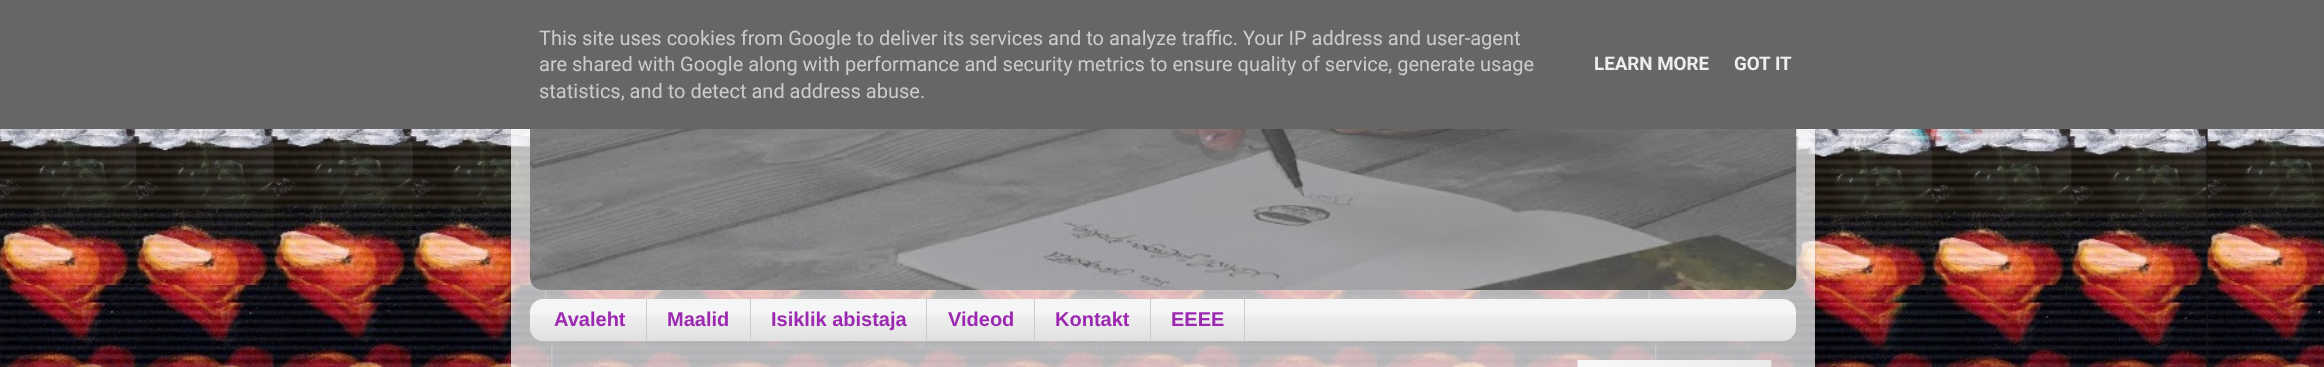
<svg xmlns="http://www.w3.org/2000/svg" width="2324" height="367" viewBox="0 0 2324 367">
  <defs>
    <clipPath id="clip1"><path d="M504 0H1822V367H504ZM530-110H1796C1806.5-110 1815-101.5 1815-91V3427C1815 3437.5 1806.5 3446 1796 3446H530C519.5 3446 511 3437.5 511 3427V-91C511-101.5 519.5-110 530-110Z" clip-rule="evenodd"/></clipPath>
  </defs>
  <rect width="100%" height="100%" fill="rgb(255,255,255)"/>
  <image x="0" y="129" width="2324" height="238" href="pic1.png"/>
  <g clip-path="url(#clip1)">
    <rect x="511" y="-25" width="1304" height="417" rx="19" fill="rgba(0,0,0,0.15)" filter="blur(2px)"/>
  </g>
  <rect x="0" y="0" width="2324" height="129" fill="rgb(102,102,102)"/>
  <g font-family="Roboto" font-size="20" fill="rgb(204,204,204)">
    <text>
      <tspan x="539" y="45">This site uses cookies from Google to deliver its services and to analyze traffic. Your IP address and user-agent</tspan>
      <tspan x="539" y="71">are shared with Google along with performance and security metrics to ensure quality of service, generate usage</tspan>
      <tspan x="539" y="98">statistics, and to detect and address abuse.</tspan>
    </text>
  </g>
  <g font-family="Roboto" font-size="18.75" font-weight="bold" fill="rgb(238,238,238)">
    <text x="1594" y="70">LEARN MORE</text>
    <text x="1734" y="70">GOT IT</text>
  </g>
  <rect x="511" y="129" width="1304" height="238" fill="rgba(255,255,255,0.7)"/>
  <image x="530" y="129" width="1267" height="161" href="pic2.png"/>
  <rect x="530" y="299" width="1266" height="42" rx="13" fill="rgb(245,245,245)"/>
  <image x="530" y="315" width="1266" height="26" href="pic3.png"/>
  <rect x="646" y="299" width="1" height="42" fill="rgb(204,204,204)"/>
  <text x="554" y="326" font-family="Liberation Sans" font-size="20" font-weight="bold" fill="rgb(156,39,176)">Avaleht</text>
  <rect x="750" y="299" width="1" height="42" fill="rgb(204,204,204)"/>
  <text x="667" y="326" font-family="Liberation Sans" font-size="20" font-weight="bold" fill="rgb(156,39,176)">Maalid</text>
  <rect x="926" y="299" width="1" height="42" fill="rgb(204,204,204)"/>
  <text x="771" y="326" font-family="Liberation Sans" font-size="20" font-weight="bold" fill="rgb(156,39,176)">Isiklik abistaja</text>
  <rect x="1034" y="299" width="1" height="42" fill="rgb(204,204,204)"/>
  <text x="948" y="326" font-family="Liberation Sans" font-size="20" font-weight="bold" fill="rgb(156,39,176)">Videod</text>
  <rect x="1150" y="299" width="1" height="42" fill="rgb(204,204,204)"/>
  <text x="1055" y="326" font-family="Liberation Sans" font-size="20" font-weight="bold" fill="rgb(156,39,176)">Kontakt</text>
  <rect x="1244" y="299" width="1" height="42" fill="rgb(204,204,204)"/>
  <text x="1171" y="326" font-family="Liberation Sans" font-size="20" font-weight="bold" fill="rgb(156,39,176)">EEEE</text>
  <image x="1577" y="360" width="195" height="7" href="pic4.png"/>
</svg>
